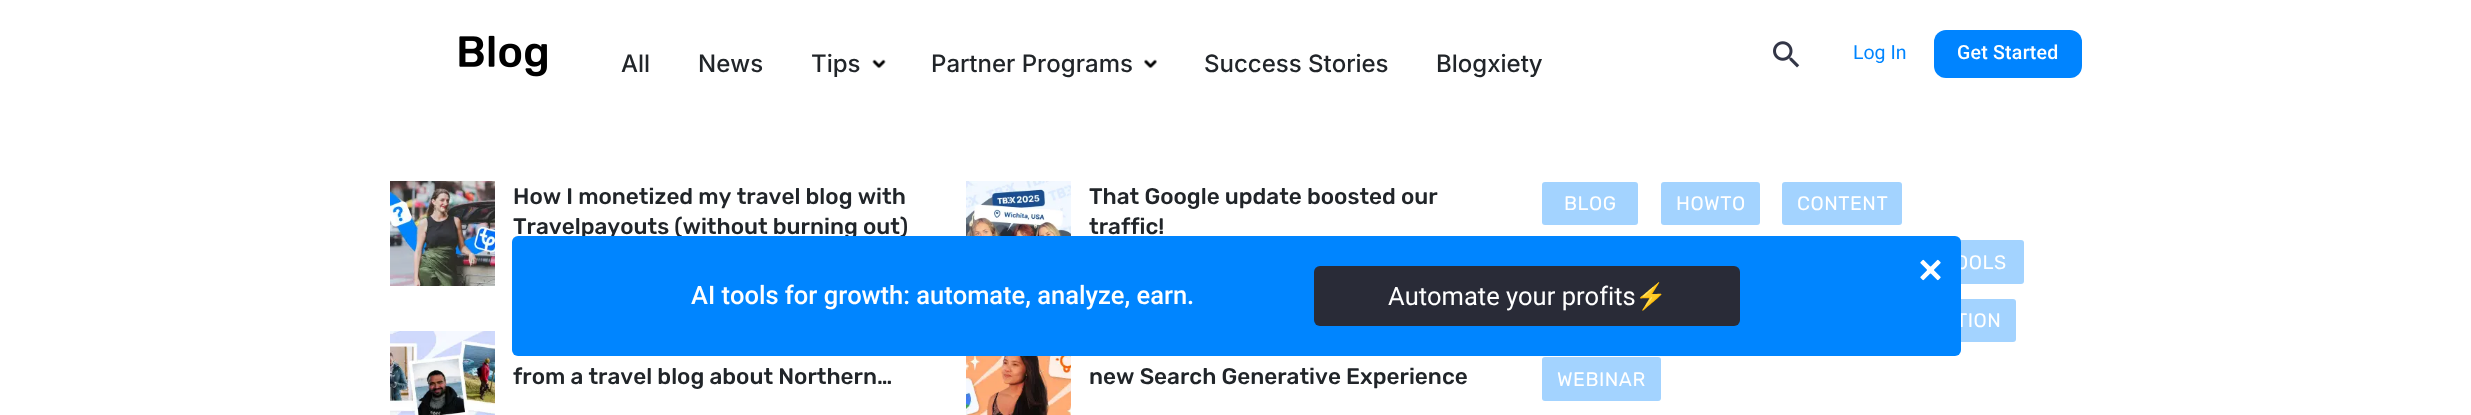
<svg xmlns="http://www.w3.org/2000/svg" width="2471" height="415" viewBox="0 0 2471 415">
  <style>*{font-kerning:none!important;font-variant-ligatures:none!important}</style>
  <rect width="100%" height="100%" fill="rgb(255,255,255)"/>
  <image x="459" y="35" width="88" height="42" href="pic1.png"/>
  <g font-family="Inter" font-size="24" font-weight="500" fill="rgb(33,37,41)">
    <text x="621" y="72">All</text>
    <text x="698" y="72">News</text>
    <text x="811" y="72">Tips</text>
  </g>
  <image x="872" y="59" width="14" height="10" href="pic2.png"/>
  <text x="931" y="72" font-family="Inter" font-size="24" font-weight="500" fill="rgb(33,37,41)">Partner Programs</text>
  <image x="1144" y="59" width="13" height="10" href="pic3.png"/>
  <g font-family="Inter" font-size="24" font-weight="500" fill="rgb(33,37,41)">
    <text x="1204" y="72">Success Stories</text>
    <text x="1436" y="72">Blogxiety</text>
  </g>
  <image x="1773" y="41" width="27" height="27" href="pic4.png"/>
  <text x="1853" y="59" font-family="Roboto" font-size="19.5" fill="rgb(0,133,255)">Log In</text>
  <rect x="1934" y="30" width="148" height="48" rx="12" fill="rgb(0,132,255)"/>
  <text x="1957" y="59" font-family="Roboto" font-size="19.5" font-weight="500" letter-spacing="0.25" fill="rgb(255,255,255)">Get Started</text>
  <image x="390" y="181" width="105" height="105" href="pic5.png"/>
  <g font-family="Rubik" font-size="22.5" font-weight="500" fill="rgb(33,37,41)">
    <text>
      <tspan x="513" y="204">How I monetized my travel blog with</tspan>
      <tspan x="513" y="234">Travelpayouts (without burning out)</tspan>
    </text>
  </g>
  <image x="390" y="331" width="105" height="84" href="pic6.png"/>
  <text x="513" y="384" font-family="Rubik" font-size="22.5" font-weight="500" fill="rgb(33,37,41)">from a travel blog about Northern…</text>
  <image x="966" y="181" width="105" height="55" href="pic7.png"/>
  <g font-family="Rubik" font-size="22.5" font-weight="500" fill="rgb(33,37,41)">
    <text>
      <tspan x="1089" y="204">That Google update boosted our</tspan>
      <tspan x="1089" y="234">traffic!</tspan>
    </text>
  </g>
  <image x="966" y="356" width="105" height="59" href="pic8.png"/>
  <text x="1089" y="384" font-family="Rubik" font-size="22.5" font-weight="500" fill="rgb(33,37,41)">new Search Generative Experience</text>
  <rect x="1542" y="182" width="96" height="43" rx="3" fill="rgb(163,211,255)"/>
  <text x="1564" y="210" font-family="Rubik" font-size="19.5" letter-spacing="0.5" fill="rgb(255,255,255)">BLOG</text>
  <rect x="1661" y="182" width="99" height="43" rx="3" fill="rgb(163,211,255)"/>
  <text x="1676" y="210" font-family="Rubik" font-size="19.5" letter-spacing="0.5" fill="rgb(255,255,255)">HOWTO</text>
  <rect x="1782" y="182" width="120" height="43" rx="3" fill="rgb(163,211,255)"/>
  <text x="1797" y="210" font-family="Rubik" font-size="19.5" letter-spacing="0.5" fill="rgb(255,255,255)">CONTENT</text>
  <rect x="1928" y="240" width="96" height="44" rx="3" fill="rgb(163,211,255)"/>
  <text x="1955" y="269" font-family="Rubik" font-size="19.5" letter-spacing="0.5" fill="rgb(255,255,255)">OOLS</text>
  <rect x="1842" y="299" width="174" height="43" rx="3" fill="rgb(163,211,255)"/>
  <text x="1956" y="327" font-family="Rubik" font-size="19.5" letter-spacing="0.5" fill="rgb(255,255,255)">TION</text>
  <rect x="1542" y="357" width="119" height="44" rx="3" fill="rgb(163,211,255)"/>
  <text x="1557" y="386" font-family="Rubik" font-size="19.5" letter-spacing="0.5" fill="rgb(255,255,255)">WEBINAR</text>
  <rect x="512" y="236" width="1449" height="120" rx="6" fill="rgb(0,133,255)"/>
  <image x="1920" y="259" width="21" height="22" href="pic9.png"/>
  <text x="691" y="304" font-family="Roboto" font-size="25.5" font-weight="500" fill="rgb(255,255,255)">AI tools for growth: automate, analyze, earn.</text>
  <rect x="1314" y="266" width="426" height="60" rx="6" fill="rgb(41,43,55)"/>
  <text x="1388" y="305" font-family="Roboto" font-size="25.5" fill="rgb(255,255,255)">Automate your profits</text>
  <text x="1635" y="305" font-family="Noto Color Emoji" font-size="25.5" fill="rgb(255,255,255)">⚡</text>
</svg>
